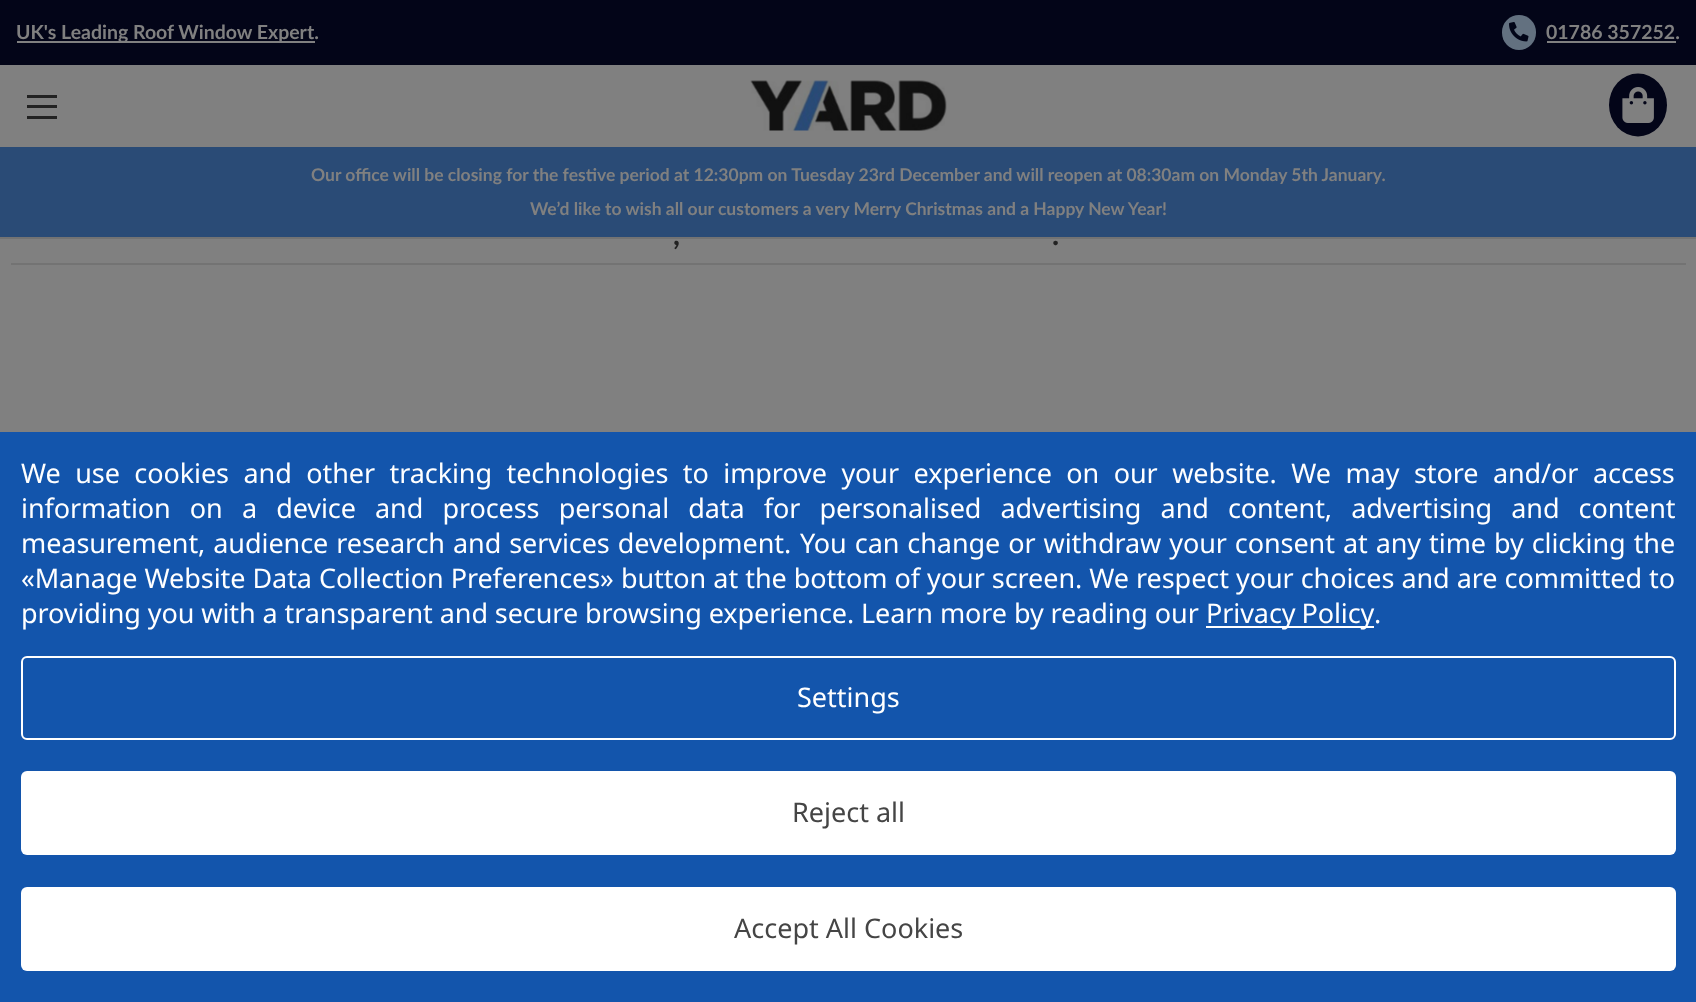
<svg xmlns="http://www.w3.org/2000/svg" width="1696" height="1002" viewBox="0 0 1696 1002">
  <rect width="100%" height="100%" fill="rgb(128,128,128)"/>
  <rect x="0" y="237" width="1696" height="2" fill="rgb(115,115,115)"/>
  <rect x="0" y="0" width="1696" height="65" fill="rgb(3,5,24)"/>
  <rect x="17" y="41" width="298" height="2" fill="rgb(128,128,128)"/>
  <text x="16" y="39" font-family="Lato" font-size="19.5" font-weight="bold" fill="rgb(128,128,128)">UK's Leading Roof Window Expert.</text>
  <rect x="1502" y="15" width="34" height="35" rx="17" fill="rgb(99,113,128)"/>
  <image x="1509" y="22" width="20" height="20" href="pic1.png"/>
  <text x="1546" y="39" font-family="Lato" font-size="19.5" font-weight="bold" fill="rgb(128,128,128)">01786 357252.</text>
  <rect x="1547" y="41" width="129" height="2" fill="rgb(128,128,128)"/>
  <rect x="27" y="105" width="30" height="3" fill="rgb(34,34,34)"/>
  <rect x="27" y="95" width="30" height="3" fill="rgb(34,34,34)"/>
  <rect x="27" y="116" width="30" height="3" fill="rgb(34,34,34)"/>
  <image x="750" y="80" width="197" height="51" href="pic2.png"/>
  <ellipse cx="1638" cy="105" rx="29" ry="31.5" fill="rgb(3,5,24)"/>
  <image x="1622" y="87" width="32" height="36" href="pic3.png"/>
  <rect x="0" y="147" width="1696" height="90" fill="rgb(42,75,118)"/>
  <g font-family="Lato" font-size="17.5" font-weight="bold" fill="rgb(128,128,128)">
    <text x="311" y="181">Our office will be closing for the festive period at 12:30pm on Tuesday 23rd December and will reopen at 08:30am on Monday 5th January.</text>
    <text x="530" y="215">We’d like to wish all our customers a very Merry Christmas and a Happy New Year!</text>
  </g>
  <rect x="11" y="263" width="1675" height="2" fill="rgb(115,115,115)"/>
  <g font-family="Lato" font-size="30" font-weight="bold" fill="rgb(34,34,34)">
    <text x="673" y="245">,</text>
    <text x="1052" y="245">.</text>
  </g>
  <rect x="0" y="432" width="1696" height="570" fill="rgb(19,85,172)"/>
  <g font-family="Noto Sans" font-size="27" letter-spacing="-0.08" fill="rgb(255,255,255)">
    <text>
      <tspan x="21" y="483" word-spacing="7.6">We use cookies and other tracking technologies to improve your experience on our website. We may store and/or access</tspan>
      <tspan x="21" y="518" word-spacing="12.25">information on a device and process personal data for personalised advertising and content, advertising and content</tspan>
      <tspan x="21" y="553" word-spacing="1.1">measurement, audience research and services development.</tspan>
    </text>
    <text x="800" y="553" word-spacing="1.1">You can change or withdraw your consent at any time by clicking the</text>
    <text>
      <tspan x="21" y="588" word-spacing="0.2">«Manage Website Data Collection Preferences» button at the bottom of your screen. We respect your choices and are committed to</tspan>
      <tspan x="21" y="623">providing you with a transparent and secure browsing experience. Learn more by reading our</tspan>
    </text>
  </g>
  <rect x="1206" y="626" width="168" height="2" fill="rgb(255,255,255)"/>
  <g font-family="Noto Sans" font-size="27" letter-spacing="-0.08" fill="rgb(255,255,255)">
    <text x="1206" y="623" word-spacing="-1">Privacy Policy</text>
    <text x="1374" y="623">.</text>
  </g>
  <rect x="22" y="657" width="1653" height="82" rx="5" fill="none" stroke="rgb(255,255,255)" stroke-width="2"/>
  <text x="797" y="707" font-family="Noto Sans" font-size="27" fill="rgb(255,255,255)">Settings</text>
  <rect x="21" y="771" width="1655" height="84" rx="6" fill="rgb(255,255,255)"/>
  <text x="792" y="822" font-family="Noto Sans" font-size="27" fill="rgb(69,69,69)">Reject all</text>
  <rect x="21" y="887" width="1655" height="84" rx="6" fill="rgb(255,255,255)"/>
  <text x="734" y="938" font-family="Noto Sans" font-size="27" fill="rgb(69,69,69)">Accept All Cookies</text>
</svg>
